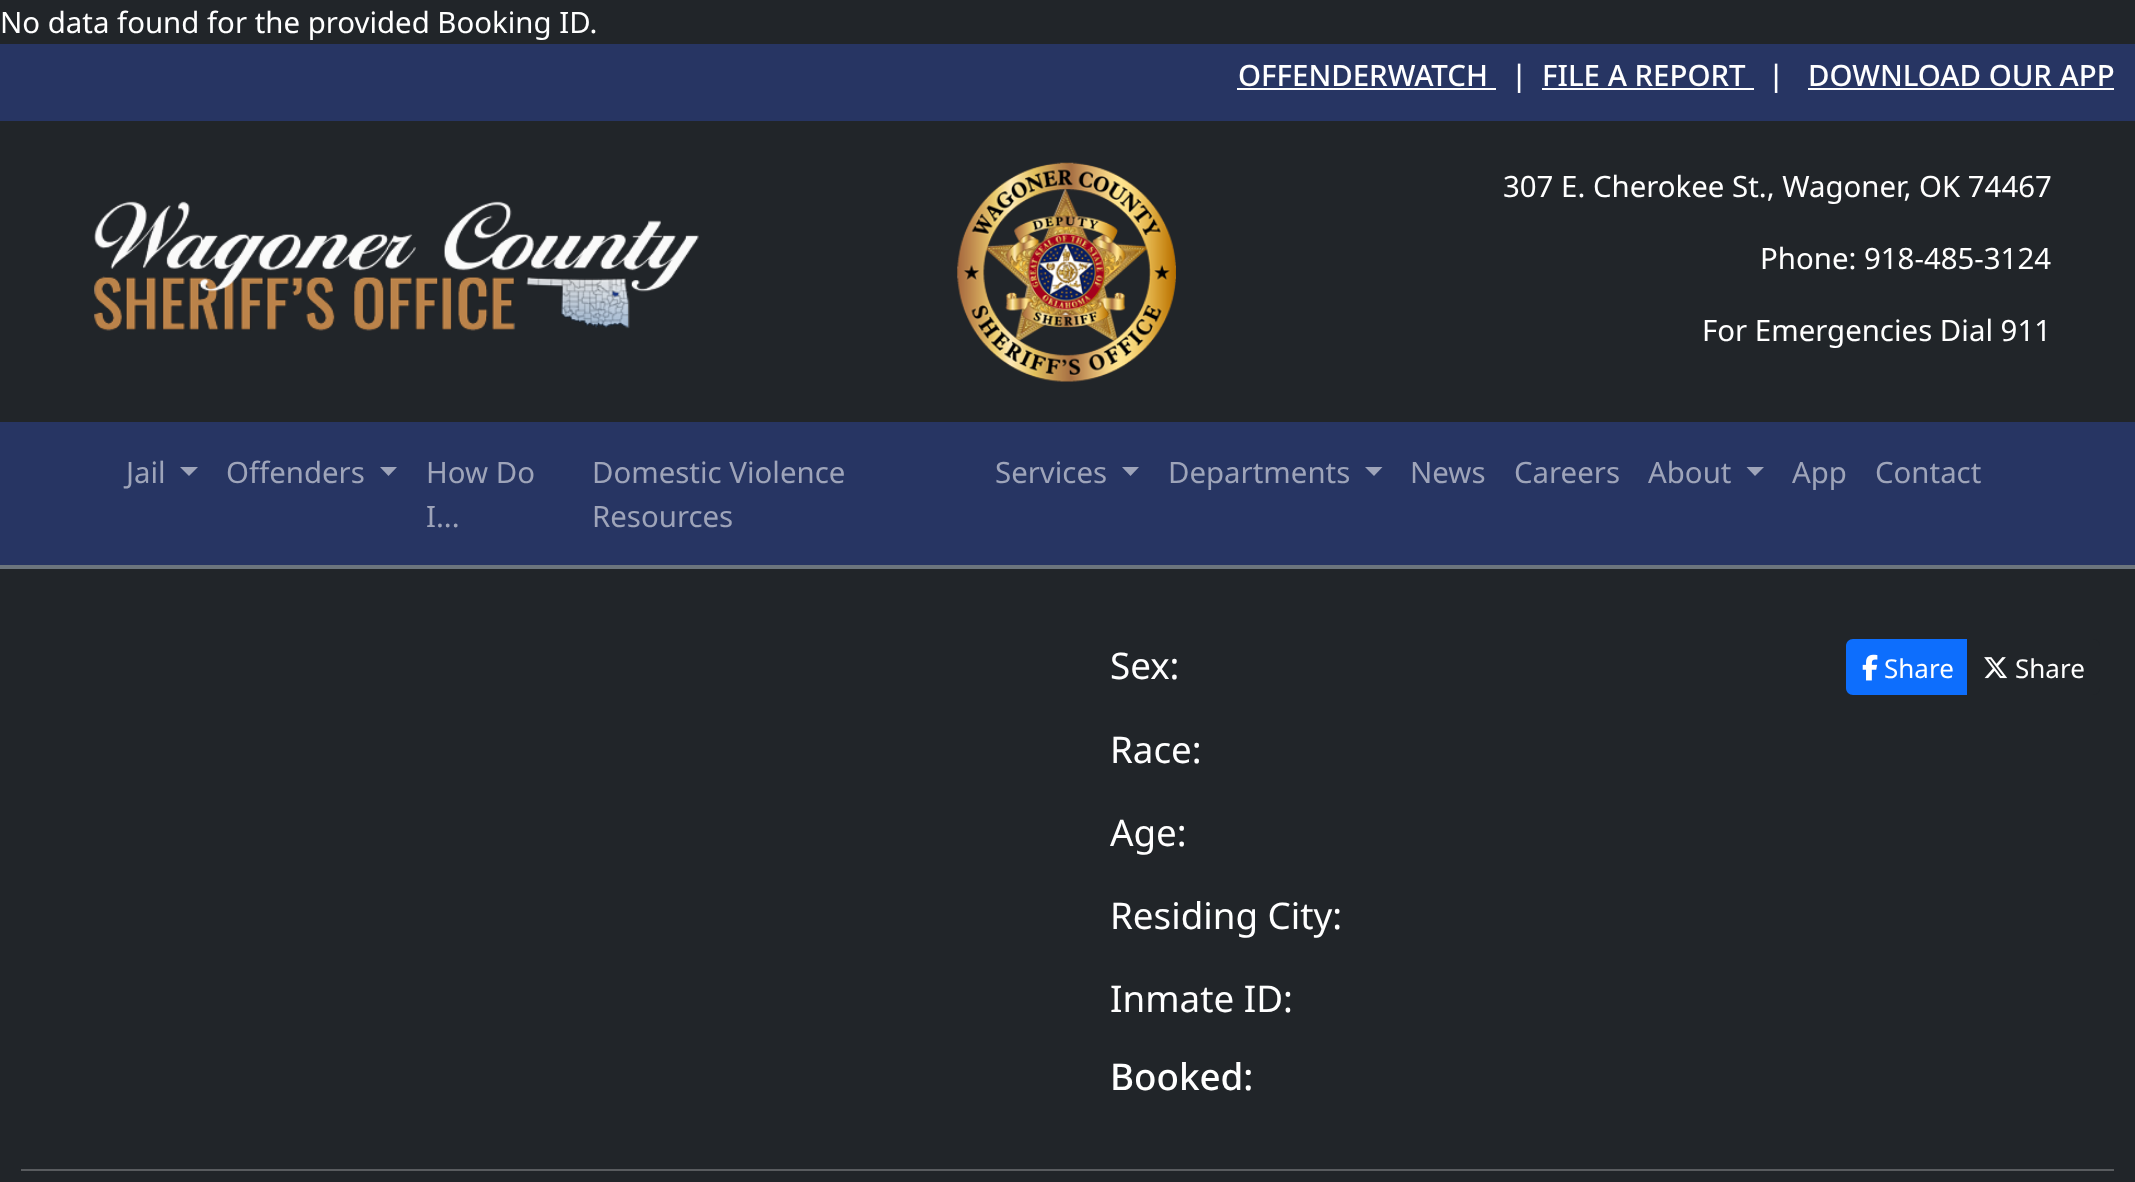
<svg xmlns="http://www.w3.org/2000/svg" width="2135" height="1182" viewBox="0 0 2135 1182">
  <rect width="100%" height="100%" fill="rgb(33,37,41)"/>
  <text x="0" y="33" font-family="Noto Sans" font-size="29.4" fill="rgb(255,255,255)">No data found for the provided Booking ID.</text>
  <rect x="0" y="44" width="2135" height="77" fill="rgb(39,53,99)"/>
  <text x="1238" y="86" font-family="Noto Sans" font-size="29.4" font-weight="500" fill="rgb(255,255,255)">OFFENDERWATCH</text>
  <rect x="1237" y="88" width="259" height="2" fill="rgb(255,255,255)"/>
  <g font-family="Noto Sans" font-size="29.4" font-weight="500" fill="rgb(255,255,255)">
    <text x="1511" y="86">|</text>
    <text x="1542" y="86">FILE A REPORT</text>
  </g>
  <rect x="1542" y="88" width="212" height="2" fill="rgb(255,255,255)"/>
  <g font-family="Noto Sans" font-size="29.4" font-weight="500" fill="rgb(255,255,255)">
    <text x="1768" y="86">|</text>
    <text x="1808" y="86">DOWNLOAD OUR APP</text>
  </g>
  <rect x="1808" y="88" width="306" height="2" fill="rgb(255,255,255)"/>
  <image x="94" y="201" width="605" height="130" href="pic1.png"/>
  <image x="957" y="162" width="219" height="220" href="pic2.png"/>
  <g font-family="Noto Sans" font-size="29.4" fill="rgb(255,255,255)">
    <text x="1503" y="197">307 E. Cherokee St., Wagoner, OK 74467</text>
    <text x="1760" y="269">Phone: 918-485-3124</text>
    <text x="1702" y="341">For Emergencies Dial 911</text>
  </g>
  <rect x="0" y="565" width="2135" height="4" fill="rgb(108,117,125)"/>
  <rect x="0" y="422" width="2135" height="143" fill="rgb(39,53,99)"/>
  <text x="126" y="483" font-family="Noto Sans" font-size="29.4" fill="rgb(158,164,185)">Jail</text>
  <path d="M180 467H198L189 476Z" fill="rgb(158,164,185)"/>
  <text x="226" y="483" font-family="Noto Sans" font-size="29.4" fill="rgb(158,164,185)">Offenders</text>
  <path d="M380 467H397L388.5 476Z" fill="rgb(158,164,185)"/>
  <g font-family="Noto Sans" font-size="29.4" fill="rgb(158,164,185)">
    <text>
      <tspan x="426" y="483">How Do</tspan>
      <tspan x="426" y="527">I...</tspan>
    </text>
    <text>
      <tspan x="592" y="483">Domestic Violence</tspan>
      <tspan x="592" y="527">Resources</tspan>
    </text>
    <text x="995" y="483">Services</text>
  </g>
  <path d="M1122 467H1139L1130.5 476Z" fill="rgb(158,164,185)"/>
  <text x="1168" y="483" font-family="Noto Sans" font-size="29.4" fill="rgb(158,164,185)">Departments</text>
  <path d="M1365 467H1382.5L1374 476Z" fill="rgb(158,164,185)"/>
  <g font-family="Noto Sans" font-size="29.4" fill="rgb(158,164,185)">
    <text x="1410" y="483">News</text>
    <text x="1514" y="483">Careers</text>
    <text x="1648" y="483">About</text>
  </g>
  <path d="M1746.5 467H1764L1755 476Z" fill="rgb(158,164,185)"/>
  <g font-family="Noto Sans" font-size="29.4" fill="rgb(158,164,185)">
    <text x="1792" y="483">App</text>
    <text x="1875" y="483">Contact</text>
  </g>
  <g font-family="Noto Sans" font-size="36.75" fill="rgb(255,255,255)">
    <text x="1110" y="679">Sex:</text>
    <text x="1110" y="763">Race:</text>
    <text x="1110" y="846">Age:</text>
    <text x="1110" y="929">Residing City:</text>
    <text x="1110" y="1012">Inmate ID:</text>
  </g>
  <text x="1110" y="1090" font-family="Noto Sans" font-size="36.75" font-weight="500" fill="rgb(255,255,255)">Booked:</text>
  <path d="M1853 639H1969V695H1853C1849 695 1846 692 1846 688V646C1846 642 1849 639 1853 639Z" fill="rgb(13,110,253)"/>
  <image x="1862" y="654" width="16" height="27" href="pic3.png"/>
  <text x="1884" y="678" font-family="Noto Sans" font-size="26" fill="rgb(255,255,255)">Share</text>
  <path d="M1967 639H2093C2097 639 2100 642 2100 646V688C2100 692 2097 695 2093 695H1967Z" fill="rgb(33,37,41)"/>
  <image x="1984" y="657" width="24" height="22" href="pic4.png"/>
  <text x="2015" y="678" font-family="Noto Sans" font-size="26" fill="rgb(255,255,255)">Share</text>
  <rect x="21" y="1169" width="2093" height="2" fill="rgb(89,92,95)"/>
</svg>
